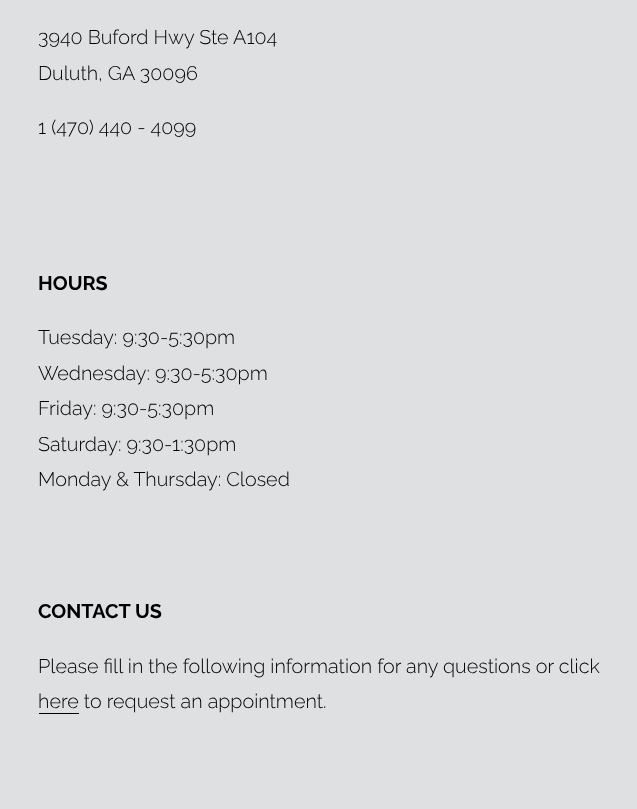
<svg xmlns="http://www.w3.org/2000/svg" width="637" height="809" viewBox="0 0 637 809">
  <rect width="100%" height="100%" fill="rgb(223,224,225)"/>
  <g font-family="Raleway" font-size="19.75" font-weight="300" fill="rgb(0,0,0)">
    <text>
      <tspan x="38" y="44">3940 Buford Hwy Ste A104</tspan>
      <tspan x="38" y="80">Duluth, GA 30096</tspan>
    </text>
    <text x="38" y="134">1 (470) 440 - 4099</text>
  </g>
  <text x="38" y="290" font-family="Raleway" font-size="19.75" font-weight="bold" fill="rgb(0,0,0)">HOURS</text>
  <g font-family="Raleway" font-size="19.75" font-weight="300" fill="rgb(0,0,0)">
    <text>
      <tspan x="38" y="344">Tuesday: 9:30-5:30pm</tspan>
      <tspan x="38" y="380">Wednesday: 9:30-5:30pm</tspan>
      <tspan x="38" y="415">Friday: 9:30-5:30pm</tspan>
      <tspan x="38" y="451">Saturday: 9:30-1:30pm</tspan>
      <tspan x="38" y="486">Monday &amp; Thursday: Closed</tspan>
    </text>
  </g>
  <text x="38" y="618" font-family="Raleway" font-size="19.75" font-weight="bold" fill="rgb(0,0,0)">CONTACT US</text>
  <g font-family="Raleway" font-size="19.75" font-weight="300" fill="rgb(0,0,0)">
    <text>
      <tspan x="38" y="673">Please fill in the following information for any questions or click</tspan>
      <tspan x="38" y="708">here to request an appointment.</tspan>
    </text>
  </g>
  <rect x="39" y="713" width="40" height="1" fill="rgb(0,0,0)"/>
</svg>
